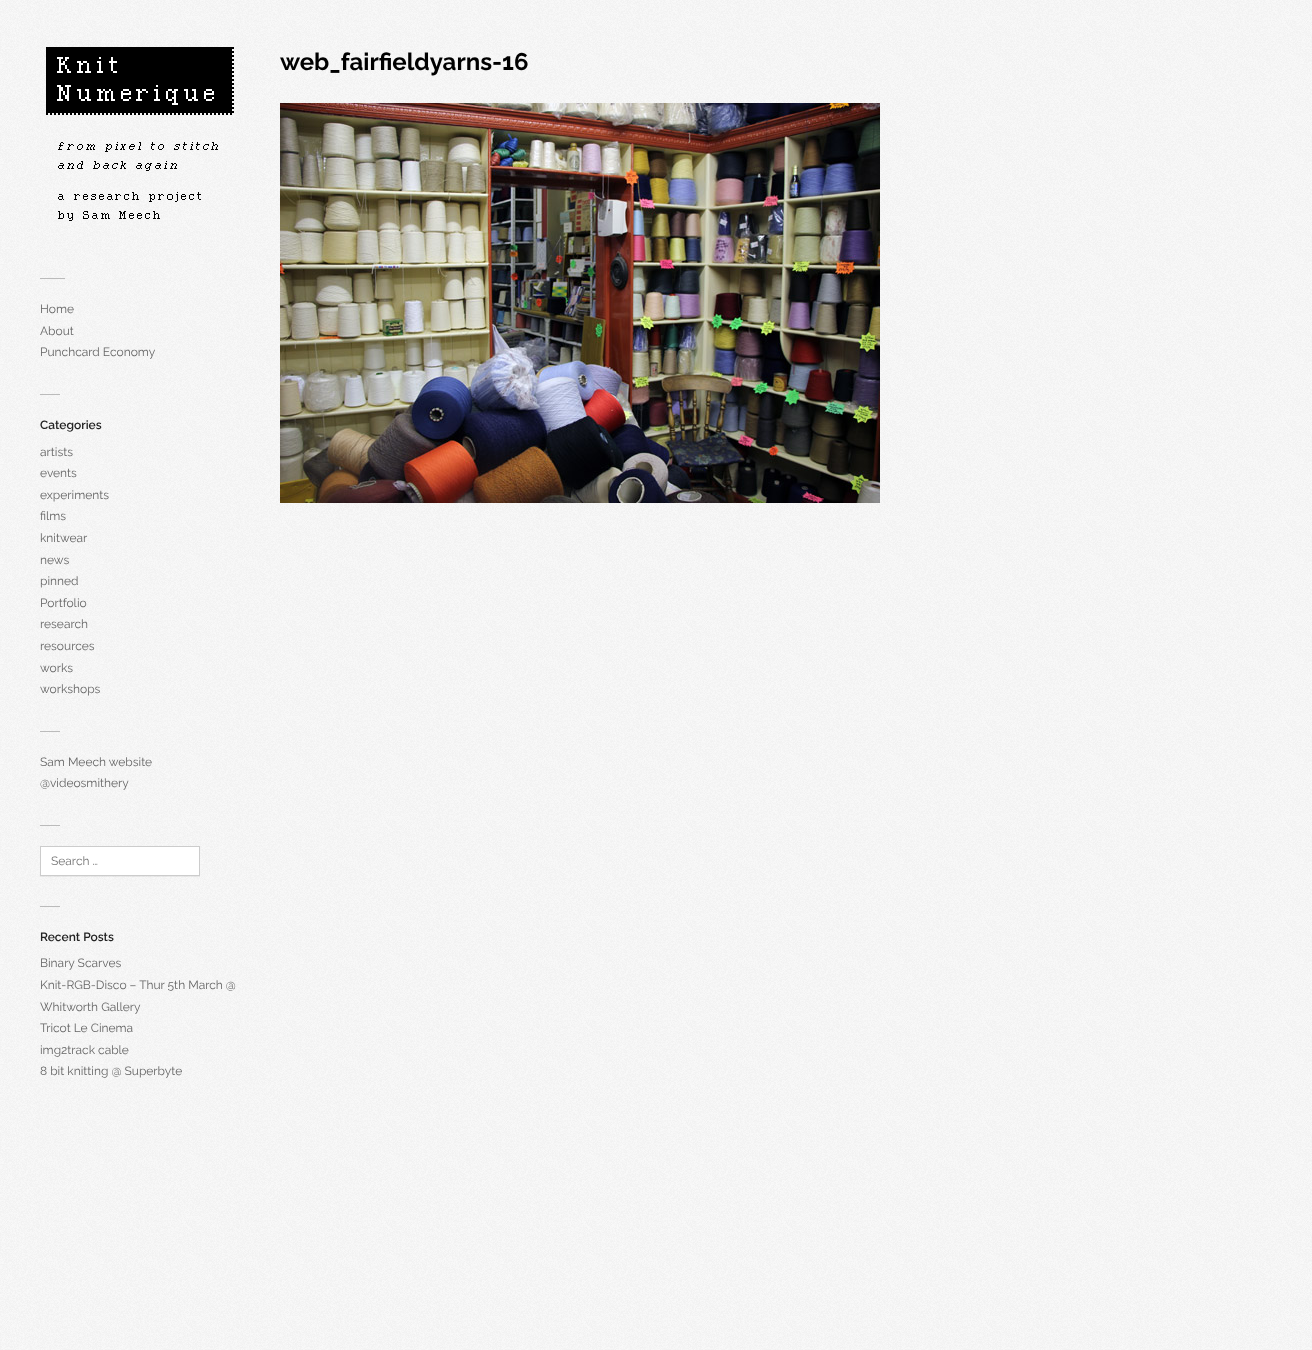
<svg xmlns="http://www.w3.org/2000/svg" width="1312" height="1350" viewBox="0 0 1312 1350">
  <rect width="100%" height="100%" fill="rgb(249,249,249)"/>
  <image x="0" y="0" width="1312" height="1350" href="pic1.png"/>
  <text x="280" y="70" font-family="Raleway" font-size="24" font-weight="bold" fill="rgb(0,0,0)">web_fairfieldyarns-16</text>
  <image x="280" y="103" width="600" height="400" href="pic2.png"/>
  <image x="46" y="47" width="188" height="174" href="pic3.png"/>
  <rect x="40" y="278" width="25" height="1" fill="rgb(187,187,187)"/>
  <g font-family="Raleway" font-size="12" fill="rgb(102,102,102)">
    <text>
      <tspan x="40" y="313">Home</tspan>
      <tspan x="40" y="335">About</tspan>
      <tspan x="40" y="356">Punchcard Economy</tspan>
    </text>
  </g>
  <rect x="40" y="394" width="20" height="1" fill="rgb(187,187,187)"/>
  <text x="40" y="429" font-family="Raleway" font-size="12" font-weight="600" fill="rgb(34,34,34)">Categories</text>
  <g font-family="Raleway" font-size="12" fill="rgb(102,102,102)">
    <text>
      <tspan x="40" y="456">artists</tspan>
      <tspan x="40" y="477">events</tspan>
      <tspan x="40" y="499">experiments</tspan>
      <tspan x="40" y="520">films</tspan>
      <tspan x="40" y="542">knitwear</tspan>
      <tspan x="40" y="564">news</tspan>
      <tspan x="40" y="585">pinned</tspan>
      <tspan x="40" y="607">Portfolio</tspan>
      <tspan x="40" y="628">research</tspan>
      <tspan x="40" y="650">resources</tspan>
      <tspan x="40" y="672">works</tspan>
      <tspan x="40" y="693">workshops</tspan>
    </text>
  </g>
  <rect x="40" y="731" width="20" height="1" fill="rgb(187,187,187)"/>
  <g font-family="Raleway" font-size="12" fill="rgb(102,102,102)">
    <text>
      <tspan x="40" y="766">Sam Meech website</tspan>
      <tspan x="40" y="787">@videosmithery</tspan>
    </text>
  </g>
  <rect x="40" y="825" width="20" height="1" fill="rgb(187,187,187)"/>
  <rect x="40" y="847" width="160" height="30" fill="rgba(0,0,0,0.06)" filter="blur(0.5px)"/>
  <rect x="40.5" y="846.5" width="159" height="29" fill="rgb(255,255,255)" stroke="rgb(204,204,204)"/>
  <text x="51" y="865" font-family="Raleway" font-size="12" fill="rgb(117,117,117)">Search …</text>
  <rect x="40" y="906" width="20" height="1" fill="rgb(187,187,187)"/>
  <text x="40" y="941" font-family="Raleway" font-size="12" font-weight="600" fill="rgb(34,34,34)">Recent Posts</text>
  <g font-family="Raleway" font-size="12" fill="rgb(102,102,102)">
    <text>
      <tspan x="40" y="967">Binary Scarves</tspan>
      <tspan x="40" y="989">Knit-RGB-Disco – Thur 5th March @</tspan>
      <tspan x="40" y="1011">Whitworth Gallery</tspan>
      <tspan x="40" y="1032">Tricot Le Cinema</tspan>
      <tspan x="40" y="1054">img2track cable</tspan>
      <tspan x="40" y="1075">8 bit knitting @ Superbyte</tspan>
    </text>
  </g>
</svg>
